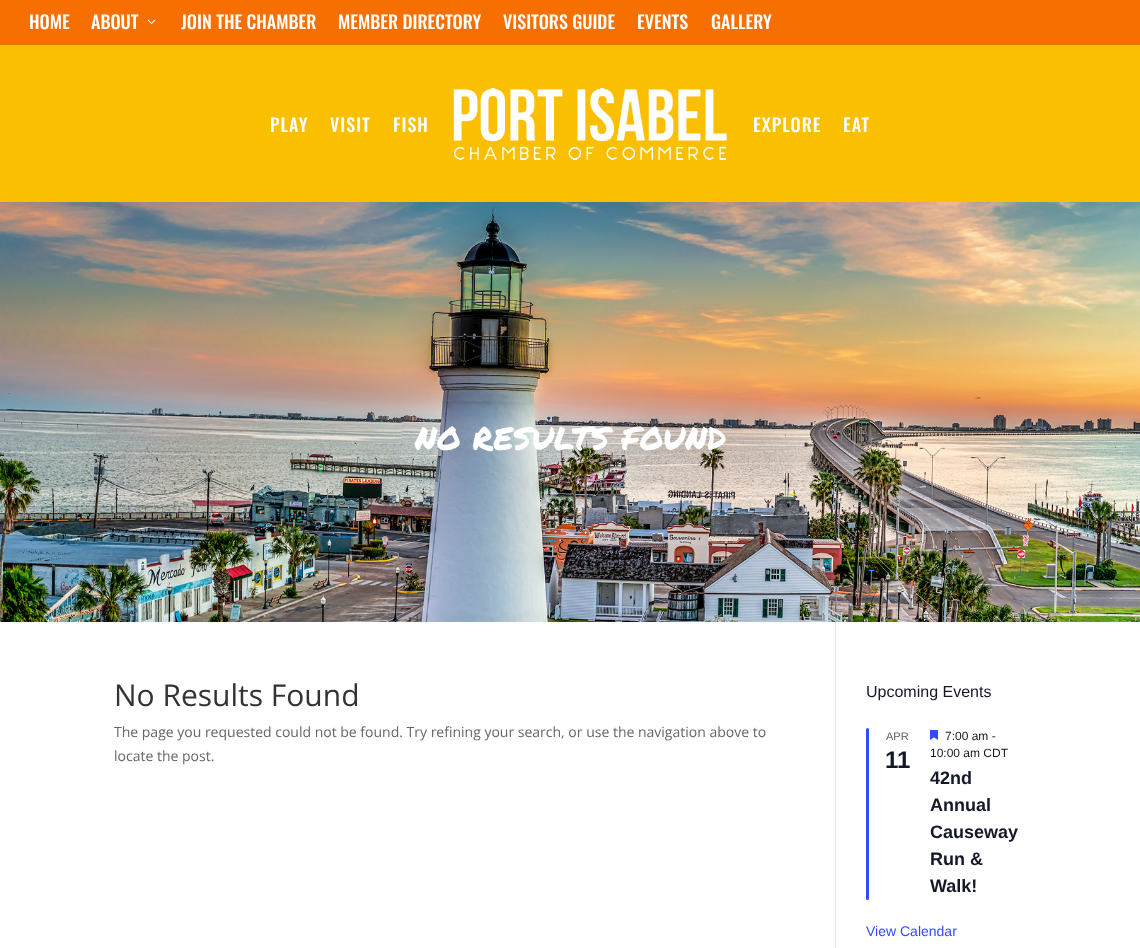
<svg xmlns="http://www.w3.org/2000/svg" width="1140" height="948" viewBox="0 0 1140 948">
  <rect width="100%" height="100%" fill="rgb(255,255,255)"/>
  <rect x="0" y="0" width="1140" height="45" fill="rgb(246,111,0)"/>
  <g font-family="Oswald" font-size="18" font-weight="500" fill="rgb(255,255,255)">
    <text x="29" y="29">HOME</text>
    <text x="91" y="29">ABOUT</text>
  </g>
  <image x="147" y="19" width="9" height="5" href="pic1.png"/>
  <g font-family="Oswald" font-size="18" font-weight="500" fill="rgb(255,255,255)">
    <text x="181" y="29">JOIN THE CHAMBER</text>
    <text x="338" y="29">MEMBER DIRECTORY</text>
    <text x="503" y="29">VISITORS GUIDE</text>
    <text x="637" y="29">EVENTS</text>
    <text x="711" y="29">GALLERY</text>
  </g>
  <rect x="0" y="45" width="1140" height="157" fill="rgb(249,191,0)"/>
  <g font-family="Oswald" font-size="18" font-weight="500" letter-spacing="1" fill="rgb(255,255,255)">
    <text x="270" y="132">PLAY</text>
    <text x="330" y="132">VISIT</text>
    <text x="393" y="132">FISH</text>
  </g>
  <image x="453" y="88" width="274" height="72" href="pic2.png"/>
  <g font-family="Oswald" font-size="18" font-weight="500" letter-spacing="1" fill="rgb(255,255,255)">
    <text x="753" y="132">EXPLORE</text>
    <text x="843" y="132">EAT</text>
  </g>
  <image x="0" y="202" width="1140" height="420" href="pic3.png"/>
  <text x="415" y="450" font-family="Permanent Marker" font-size="32" fill="rgb(255,255,255)">NO RESULTS FOUND</text>
  <rect x="835" y="622" width="1" height="326" fill="rgb(226,226,226)"/>
  <text x="114" y="706" font-family="Open Sans" font-size="30" fill="rgb(51,51,51)">No Results Found</text>
  <g font-family="Open Sans" font-size="14" fill="rgb(102,102,102)">
    <text>
      <tspan x="114" y="737">The page you requested could not be found. Try refining your search, or use the navigation above to</tspan>
      <tspan x="114" y="761">locate the post.</tspan>
    </text>
  </g>
  <text x="866" y="697" font-family="Liberation Sans" font-size="16" fill="rgb(20,24,39)">Upcoming Events</text>
  <rect x="866" y="728" width="3" height="172" rx="1.5" fill="rgb(51,74,255)"/>
  <text x="886" y="740" font-family="Liberation Sans" font-size="11" fill="rgb(93,93,93)">APR</text>
  <text x="885" y="768" font-family="Liberation Sans" font-size="24" font-weight="bold" fill="rgb(20,24,39)">11</text>
  <image x="930" y="730" width="8" height="10" href="pic4.png"/>
  <g font-family="Liberation Sans" font-size="12" fill="rgb(20,24,39)">
    <text x="945" y="740">7:00 am -</text>
    <text x="930" y="757">10:00 am CDT</text>
  </g>
  <g font-family="Liberation Sans" font-size="18" font-weight="bold" fill="rgb(20,24,39)">
    <text>
      <tspan x="930" y="784">42nd</tspan>
      <tspan x="930" y="811">Annual</tspan>
      <tspan x="930" y="838">Causeway</tspan>
      <tspan x="930" y="865">Run &amp;</tspan>
      <tspan x="930" y="892">Walk!</tspan>
    </text>
  </g>
  <text x="866" y="936" font-family="Liberation Sans" font-size="14" fill="rgb(51,74,255)">View Calendar</text>
</svg>
